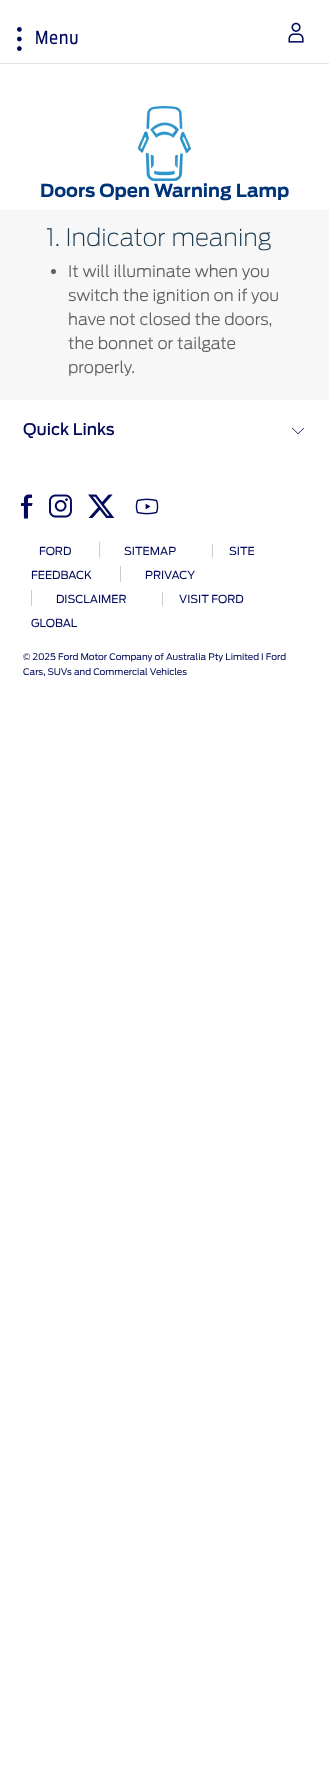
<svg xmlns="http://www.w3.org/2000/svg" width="329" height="1771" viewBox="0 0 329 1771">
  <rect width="100%" height="100%" fill="rgb(255,255,255)"/>
  <rect x="0" y="63" width="329" height="1" fill="rgb(229,229,229)"/>
  <image x="17" y="27" width="5" height="24" href="pic1.png"/>
  <text x="35" y="44" font-family="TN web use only" font-size="18" letter-spacing="1" fill="rgb(0,9,91)">Menu</text>
  <image x="288" y="22" width="16" height="21" href="pic2.png"/>
  <image x="137" y="106" width="55" height="75" href="pic3.png"/>
  <text x="40" y="197" font-family="'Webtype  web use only'" font-size="18" font-weight="bold" fill="rgb(0,52,120)">Doors Open Warning Lamp</text>
  <rect x="0" y="210" width="329" height="190" fill="rgb(247,247,247)"/>
  <text x="46" y="246" font-family="'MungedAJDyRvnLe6'" font-size="24" font-weight="200" fill="rgb(27,57,78)">1. Indicator meaning</text>
  <circle cx="53.5" cy="271.5" r="2.5" fill="rgb(97,97,97)"/>
  <g font-family="'Webtype  web use only'" font-size="16" font-weight="300" fill="rgb(97,97,97)">
    <text>
      <tspan x="68" y="277">It will illuminate when you</tspan>
      <tspan x="68" y="301">switch the ignition on if you</tspan>
      <tspan x="68" y="325">have not closed the doors,</tspan>
      <tspan x="68" y="349">the bonnet or tailgate</tspan>
      <tspan x="68" y="373">properly.</tspan>
    </text>
  </g>
  <text x="23" y="435" font-family="TN web use only" font-size="16" font-weight="500" fill="rgb(0,9,91)">Quick Links</text>
  <image x="292" y="427" width="12" height="8" href="pic4.png"/>
  <image x="21" y="494" width="12" height="25" href="pic5.png"/>
  <image x="49" y="494" width="23" height="24" href="pic6.png"/>
  <image x="88" y="494" width="27" height="24" href="pic7.png"/>
  <image x="135" y="498" width="24" height="17" href="pic8.png"/>
  <g font-family="'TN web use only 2'" font-size="11" fill="rgb(0,9,91)">
    <text x="39" y="555">FORD</text>
    <text x="124" y="555">SITEMAP</text>
  </g>
  <rect x="99" y="542" width="1" height="16" fill="rgb(204,204,204)"/>
  <text x="229" y="555" font-family="'TN web use only 2'" font-size="11" fill="rgb(0,9,91)">SITE</text>
  <rect x="212" y="544" width="1" height="14" fill="rgb(204,204,204)"/>
  <g font-family="'TN web use only 2'" font-size="11" fill="rgb(0,9,91)">
    <text x="31" y="579">FEEDBACK</text>
    <text x="145" y="579">PRIVACY</text>
  </g>
  <rect x="120" y="566" width="1" height="16" fill="rgb(204,204,204)"/>
  <text x="56" y="603" font-family="'TN web use only 2'" font-size="11" fill="rgb(0,9,91)">DISCLAIMER</text>
  <rect x="31" y="590" width="1" height="16" fill="rgb(204,204,204)"/>
  <text x="179" y="603" font-family="'TN web use only 2'" font-size="11" fill="rgb(0,9,91)">VISIT FORD</text>
  <rect x="162" y="592" width="1" height="14" fill="rgb(204,204,204)"/>
  <text x="31" y="627" font-family="'TN web use only 2'" font-size="11" fill="rgb(0,9,91)">GLOBAL</text>
  <g font-family="'Webtype  web use only'" font-size="9" fill="rgb(0,9,91)">
    <text>
      <tspan x="23" y="660">© 2025 Ford Motor Company of Australia Pty Limited I Ford</tspan>
      <tspan x="23" y="675">Cars, SUVs and Commercial Vehicles</tspan>
    </text>
  </g>
</svg>
